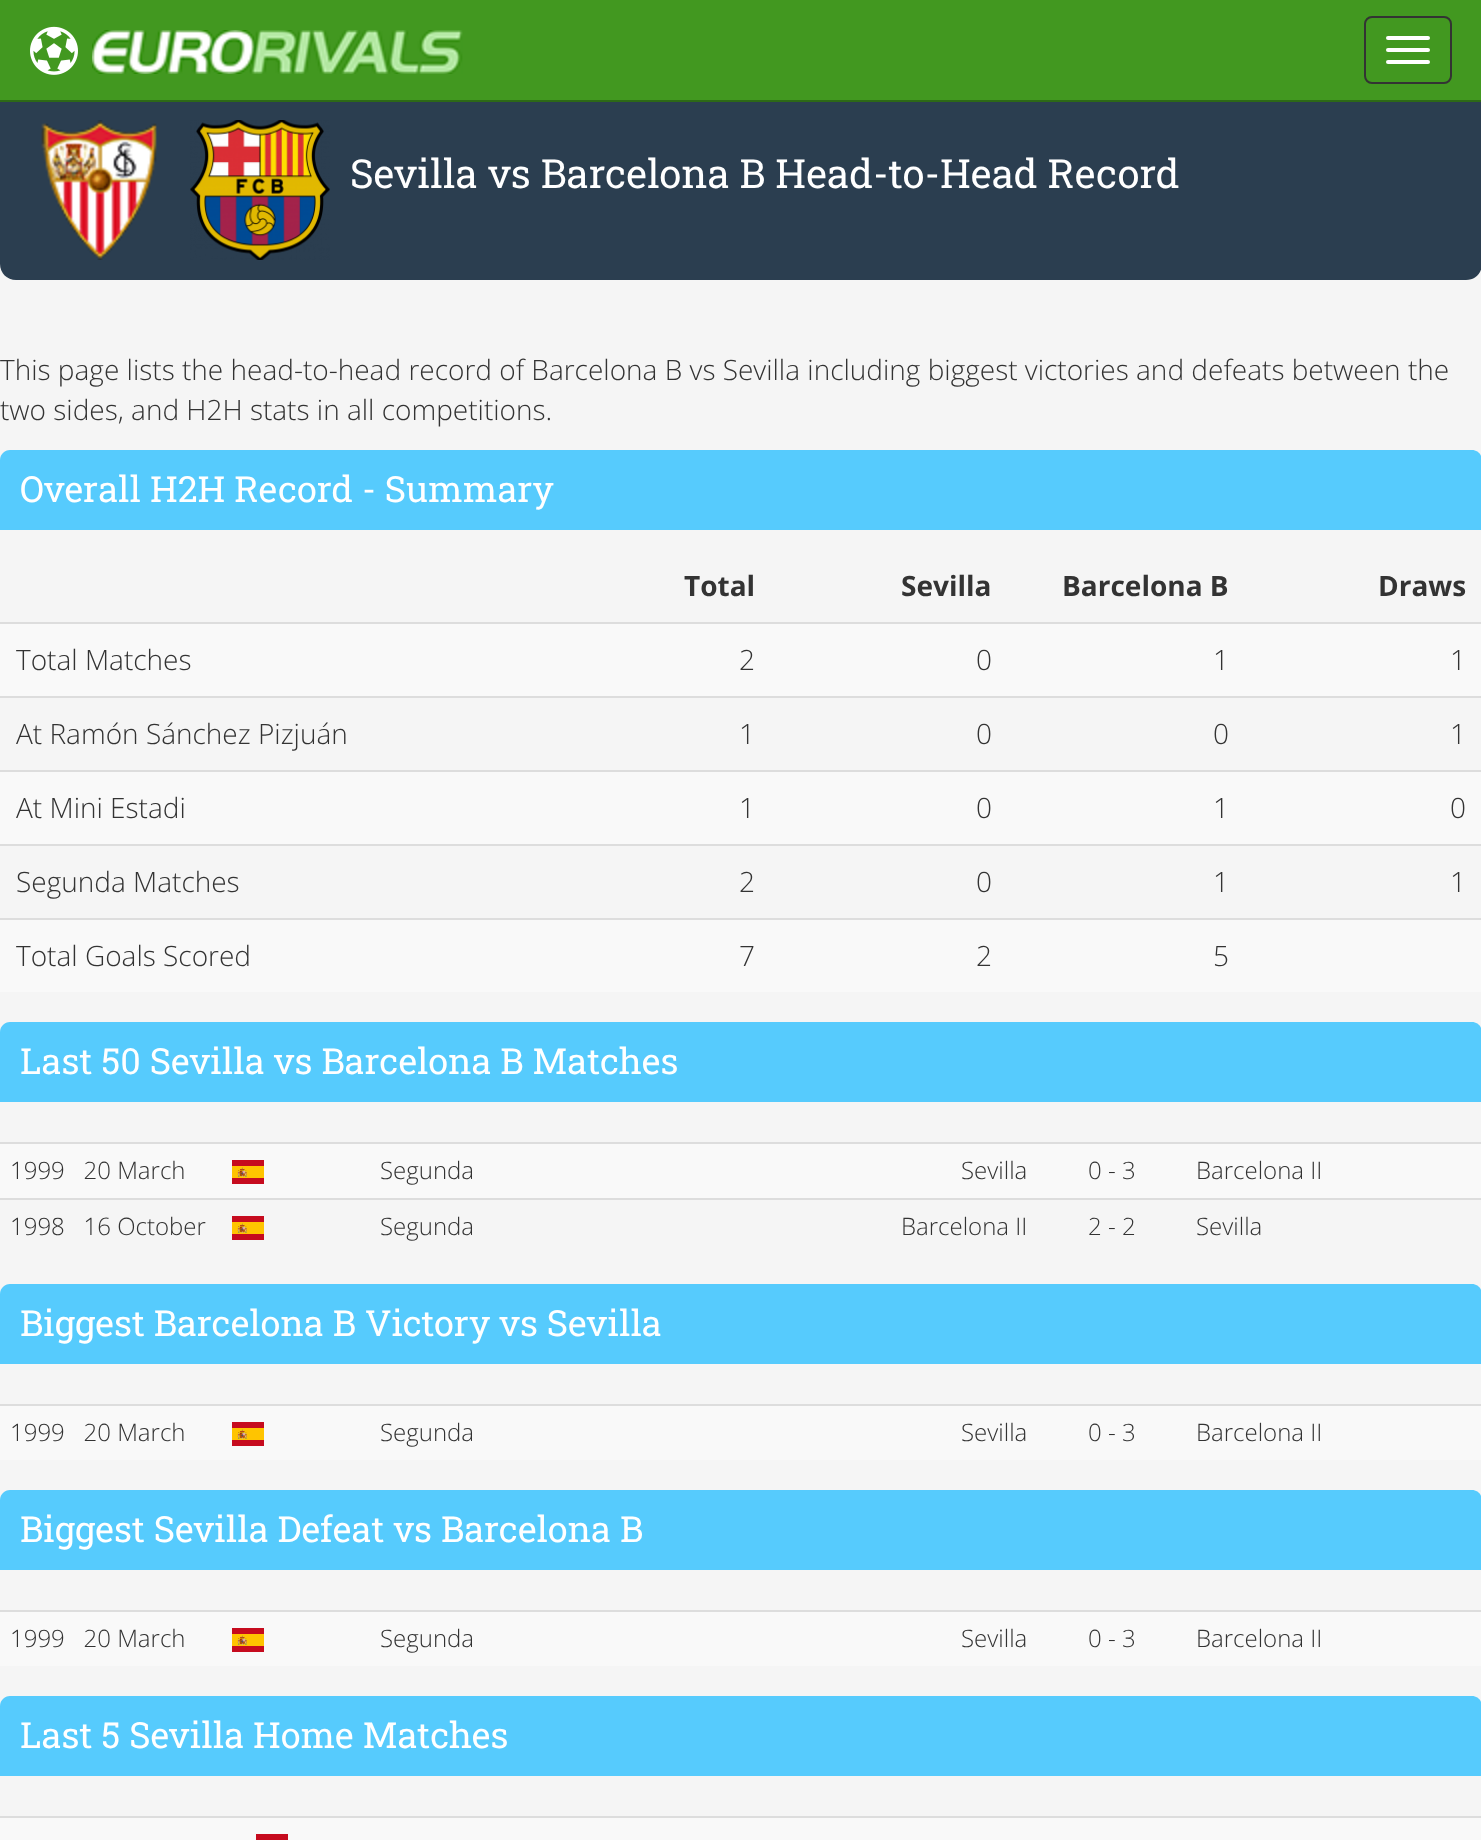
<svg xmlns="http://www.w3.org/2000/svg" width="1481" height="1840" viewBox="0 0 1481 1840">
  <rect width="100%" height="100%" fill="rgb(245,245,245)"/>
  <rect x="0" y="0" width="1481" height="100" fill="rgb(66,152,32)"/>
  <path d="M0 100H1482V264C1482 273 1475 280 1466 280H16C7 280 0 273 0 264Z" fill="rgb(43,62,80)"/>
  <rect x="0" y="100" width="1481" height="2" fill="rgb(45,105,22)"/>
  <image x="30" y="26" width="48" height="49" href="pic1.png"/>
  <image x="92" y="30" width="371" height="44" href="pic2.png"/>
  <rect x="1365" y="17" width="86" height="66" rx="7" fill="none" stroke="rgb(51,51,51)" stroke-width="2"/>
  <rect x="1386" y="36" width="44" height="4" rx="2" fill="rgb(255,255,255)"/>
  <rect x="1386" y="48" width="44" height="4" rx="2" fill="rgb(255,255,255)"/>
  <rect x="1386" y="60" width="44" height="4" rx="2" fill="rgb(255,255,255)"/>
  <image x="41" y="120" width="116" height="140" href="pic3.png"/>
  <image x="190" y="120" width="140" height="140" href="pic4.png"/>
  <text x="350" y="188" font-family="Roboto Slab" font-size="40" fill="rgb(255,255,255)">Sevilla vs Barcelona B Head-to-Head Record</text>
  <g font-family="Open Sans" font-size="28" font-weight="300" fill="rgb(51,51,51)">
    <text>
      <tspan x="0" y="380">This page lists the head-to-head record of Barcelona B vs Sevilla including biggest victories and defeats between the</tspan>
      <tspan x="0" y="420">two sides, and H2H stats in all competitions.</tspan>
    </text>
  </g>
  <path d="M10 450H1472C1477.5 450 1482 454.5 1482 460V530H0V460C0 454.5 4.5 450 10 450Z" fill="rgb(86,203,253)"/>
  <text x="20" y="502" font-family="Roboto Slab" font-size="36" fill="rgb(255,255,255)">Overall H2H Record - Summary</text>
  <g font-family="Open Sans" font-size="28" font-weight="bold" fill="rgb(51,51,51)">
    <text x="684" y="596">Total</text>
    <text x="901" y="596">Sevilla</text>
    <text x="1062" y="596">Barcelona B</text>
    <text x="1378" y="596">Draws</text>
  </g>
  <rect x="0" y="624" width="1481" height="72" fill="rgb(249,249,249)"/>
  <g font-family="Open Sans" font-size="28" font-weight="300" fill="rgb(51,51,51)">
    <text x="16" y="670">Total Matches</text>
    <text x="739" y="670">2</text>
    <text x="976" y="670">0</text>
    <text x="1213" y="670">1</text>
  </g>
  <rect x="0" y="622" width="1481" height="2" fill="rgb(221,221,221)"/>
  <g font-family="Open Sans" font-size="28" font-weight="300" fill="rgb(51,51,51)">
    <text x="1450" y="670">1</text>
    <text x="16" y="744">At Ramón Sánchez Pizjuán</text>
    <text x="739" y="744">1</text>
    <text x="976" y="744">0</text>
    <text x="1213" y="744">0</text>
  </g>
  <rect x="0" y="696" width="1481" height="2" fill="rgb(221,221,221)"/>
  <text x="1450" y="744" font-family="Open Sans" font-size="28" font-weight="300" fill="rgb(51,51,51)">1</text>
  <rect x="0" y="772" width="1481" height="72" fill="rgb(249,249,249)"/>
  <g font-family="Open Sans" font-size="28" font-weight="300" fill="rgb(51,51,51)">
    <text x="16" y="818">At Mini Estadi</text>
    <text x="739" y="818">1</text>
    <text x="976" y="818">0</text>
    <text x="1213" y="818">1</text>
  </g>
  <rect x="0" y="770" width="1481" height="2" fill="rgb(221,221,221)"/>
  <g font-family="Open Sans" font-size="28" font-weight="300" fill="rgb(51,51,51)">
    <text x="1450" y="818">0</text>
    <text x="16" y="892">Segunda Matches</text>
    <text x="739" y="892">2</text>
    <text x="976" y="892">0</text>
    <text x="1213" y="892">1</text>
  </g>
  <rect x="0" y="844" width="1481" height="2" fill="rgb(221,221,221)"/>
  <text x="1450" y="892" font-family="Open Sans" font-size="28" font-weight="300" fill="rgb(51,51,51)">1</text>
  <rect x="0" y="920" width="1481" height="72" fill="rgb(249,249,249)"/>
  <rect x="0" y="918" width="1481" height="2" fill="rgb(221,221,221)"/>
  <g font-family="Open Sans" font-size="28" font-weight="300" fill="rgb(51,51,51)">
    <text x="16" y="966">Total Goals Scored</text>
    <text x="739" y="966">7</text>
    <text x="976" y="966">2</text>
    <text x="1213" y="966">5</text>
  </g>
  <path d="M10 1022H1472C1477.5 1022 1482 1026.5 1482 1032V1102H0V1032C0 1026.5 4.5 1022 10 1022Z" fill="rgb(86,203,253)"/>
  <text x="20" y="1074" font-family="Roboto Slab" font-size="36" fill="rgb(255,255,255)">Last 50 Sevilla vs Barcelona B Matches</text>
  <rect x="0" y="1144" width="1481" height="54" fill="rgb(249,249,249)"/>
  <text x="10" y="1179" font-family="Open Sans" font-size="24" font-weight="300" fill="rgb(51,51,51)" xml:space="preserve">1999   20 March</text>
  <image x="232" y="1160" width="32" height="24" href="pic5.png"/>
  <g font-family="Open Sans" font-size="24" font-weight="300" fill="rgb(51,51,51)">
    <text x="380" y="1179">Segunda</text>
    <text x="961" y="1179">Sevilla</text>
    <text x="1088" y="1179">0 - 3</text>
  </g>
  <rect x="0" y="1142" width="1481" height="2" fill="rgb(221,221,221)"/>
  <g font-family="Open Sans" font-size="24" font-weight="300" fill="rgb(51,51,51)">
    <text x="1196" y="1179">Barcelona II</text>
    <text x="10" y="1235" xml:space="preserve">1998   16 October</text>
  </g>
  <image x="232" y="1216" width="32" height="24" href="pic5.png"/>
  <g font-family="Open Sans" font-size="24" font-weight="300" fill="rgb(51,51,51)">
    <text x="380" y="1235">Segunda</text>
    <text x="901" y="1235">Barcelona II</text>
    <text x="1088" y="1235">2 - 2</text>
  </g>
  <rect x="0" y="1198" width="1481" height="2" fill="rgb(221,221,221)"/>
  <text x="1196" y="1235" font-family="Open Sans" font-size="24" font-weight="300" fill="rgb(51,51,51)">Sevilla</text>
  <path d="M10 1284H1472C1477.5 1284 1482 1288.5 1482 1294V1364H0V1294C0 1288.5 4.5 1284 10 1284Z" fill="rgb(86,203,253)"/>
  <text x="20" y="1336" font-family="Roboto Slab" font-size="36" fill="rgb(255,255,255)">Biggest Barcelona B Victory vs Sevilla</text>
  <rect x="0" y="1406" width="1481" height="54" fill="rgb(249,249,249)"/>
  <text x="10" y="1441" font-family="Open Sans" font-size="24" font-weight="300" fill="rgb(51,51,51)" xml:space="preserve">1999   20 March</text>
  <image x="232" y="1422" width="32" height="24" href="pic5.png"/>
  <g font-family="Open Sans" font-size="24" font-weight="300" fill="rgb(51,51,51)">
    <text x="380" y="1441">Segunda</text>
    <text x="961" y="1441">Sevilla</text>
    <text x="1088" y="1441">0 - 3</text>
  </g>
  <rect x="0" y="1404" width="1481" height="2" fill="rgb(221,221,221)"/>
  <text x="1196" y="1441" font-family="Open Sans" font-size="24" font-weight="300" fill="rgb(51,51,51)">Barcelona II</text>
  <path d="M10 1490H1472C1477.5 1490 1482 1494.5 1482 1500V1570H0V1500C0 1494.5 4.5 1490 10 1490Z" fill="rgb(86,203,253)"/>
  <text x="20" y="1542" font-family="Roboto Slab" font-size="36" fill="rgb(255,255,255)">Biggest Sevilla Defeat vs Barcelona B</text>
  <rect x="0" y="1612" width="1481" height="54" fill="rgb(249,249,249)"/>
  <text x="10" y="1647" font-family="Open Sans" font-size="24" font-weight="300" fill="rgb(51,51,51)" xml:space="preserve">1999   20 March</text>
  <image x="232" y="1628" width="32" height="24" href="pic5.png"/>
  <g font-family="Open Sans" font-size="24" font-weight="300" fill="rgb(51,51,51)">
    <text x="380" y="1647">Segunda</text>
    <text x="961" y="1647">Sevilla</text>
    <text x="1088" y="1647">0 - 3</text>
  </g>
  <rect x="0" y="1610" width="1481" height="2" fill="rgb(221,221,221)"/>
  <text x="1196" y="1647" font-family="Open Sans" font-size="24" font-weight="300" fill="rgb(51,51,51)">Barcelona II</text>
  <path d="M10 1696H1472C1477.5 1696 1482 1700.5 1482 1706V1776H0V1706C0 1700.5 4.5 1696 10 1696Z" fill="rgb(86,203,253)"/>
  <text x="20" y="1748" font-family="Roboto Slab" font-size="36" fill="rgb(255,255,255)">Last 5 Sevilla Home Matches</text>
  <rect x="0" y="1818" width="1481" height="22" fill="rgb(249,249,249)"/>
  <rect x="0" y="1816" width="1481" height="2" fill="rgb(221,221,221)"/>
  <rect x="256" y="1834" width="32" height="6" fill="rgb(198,11,30)"/>
</svg>
